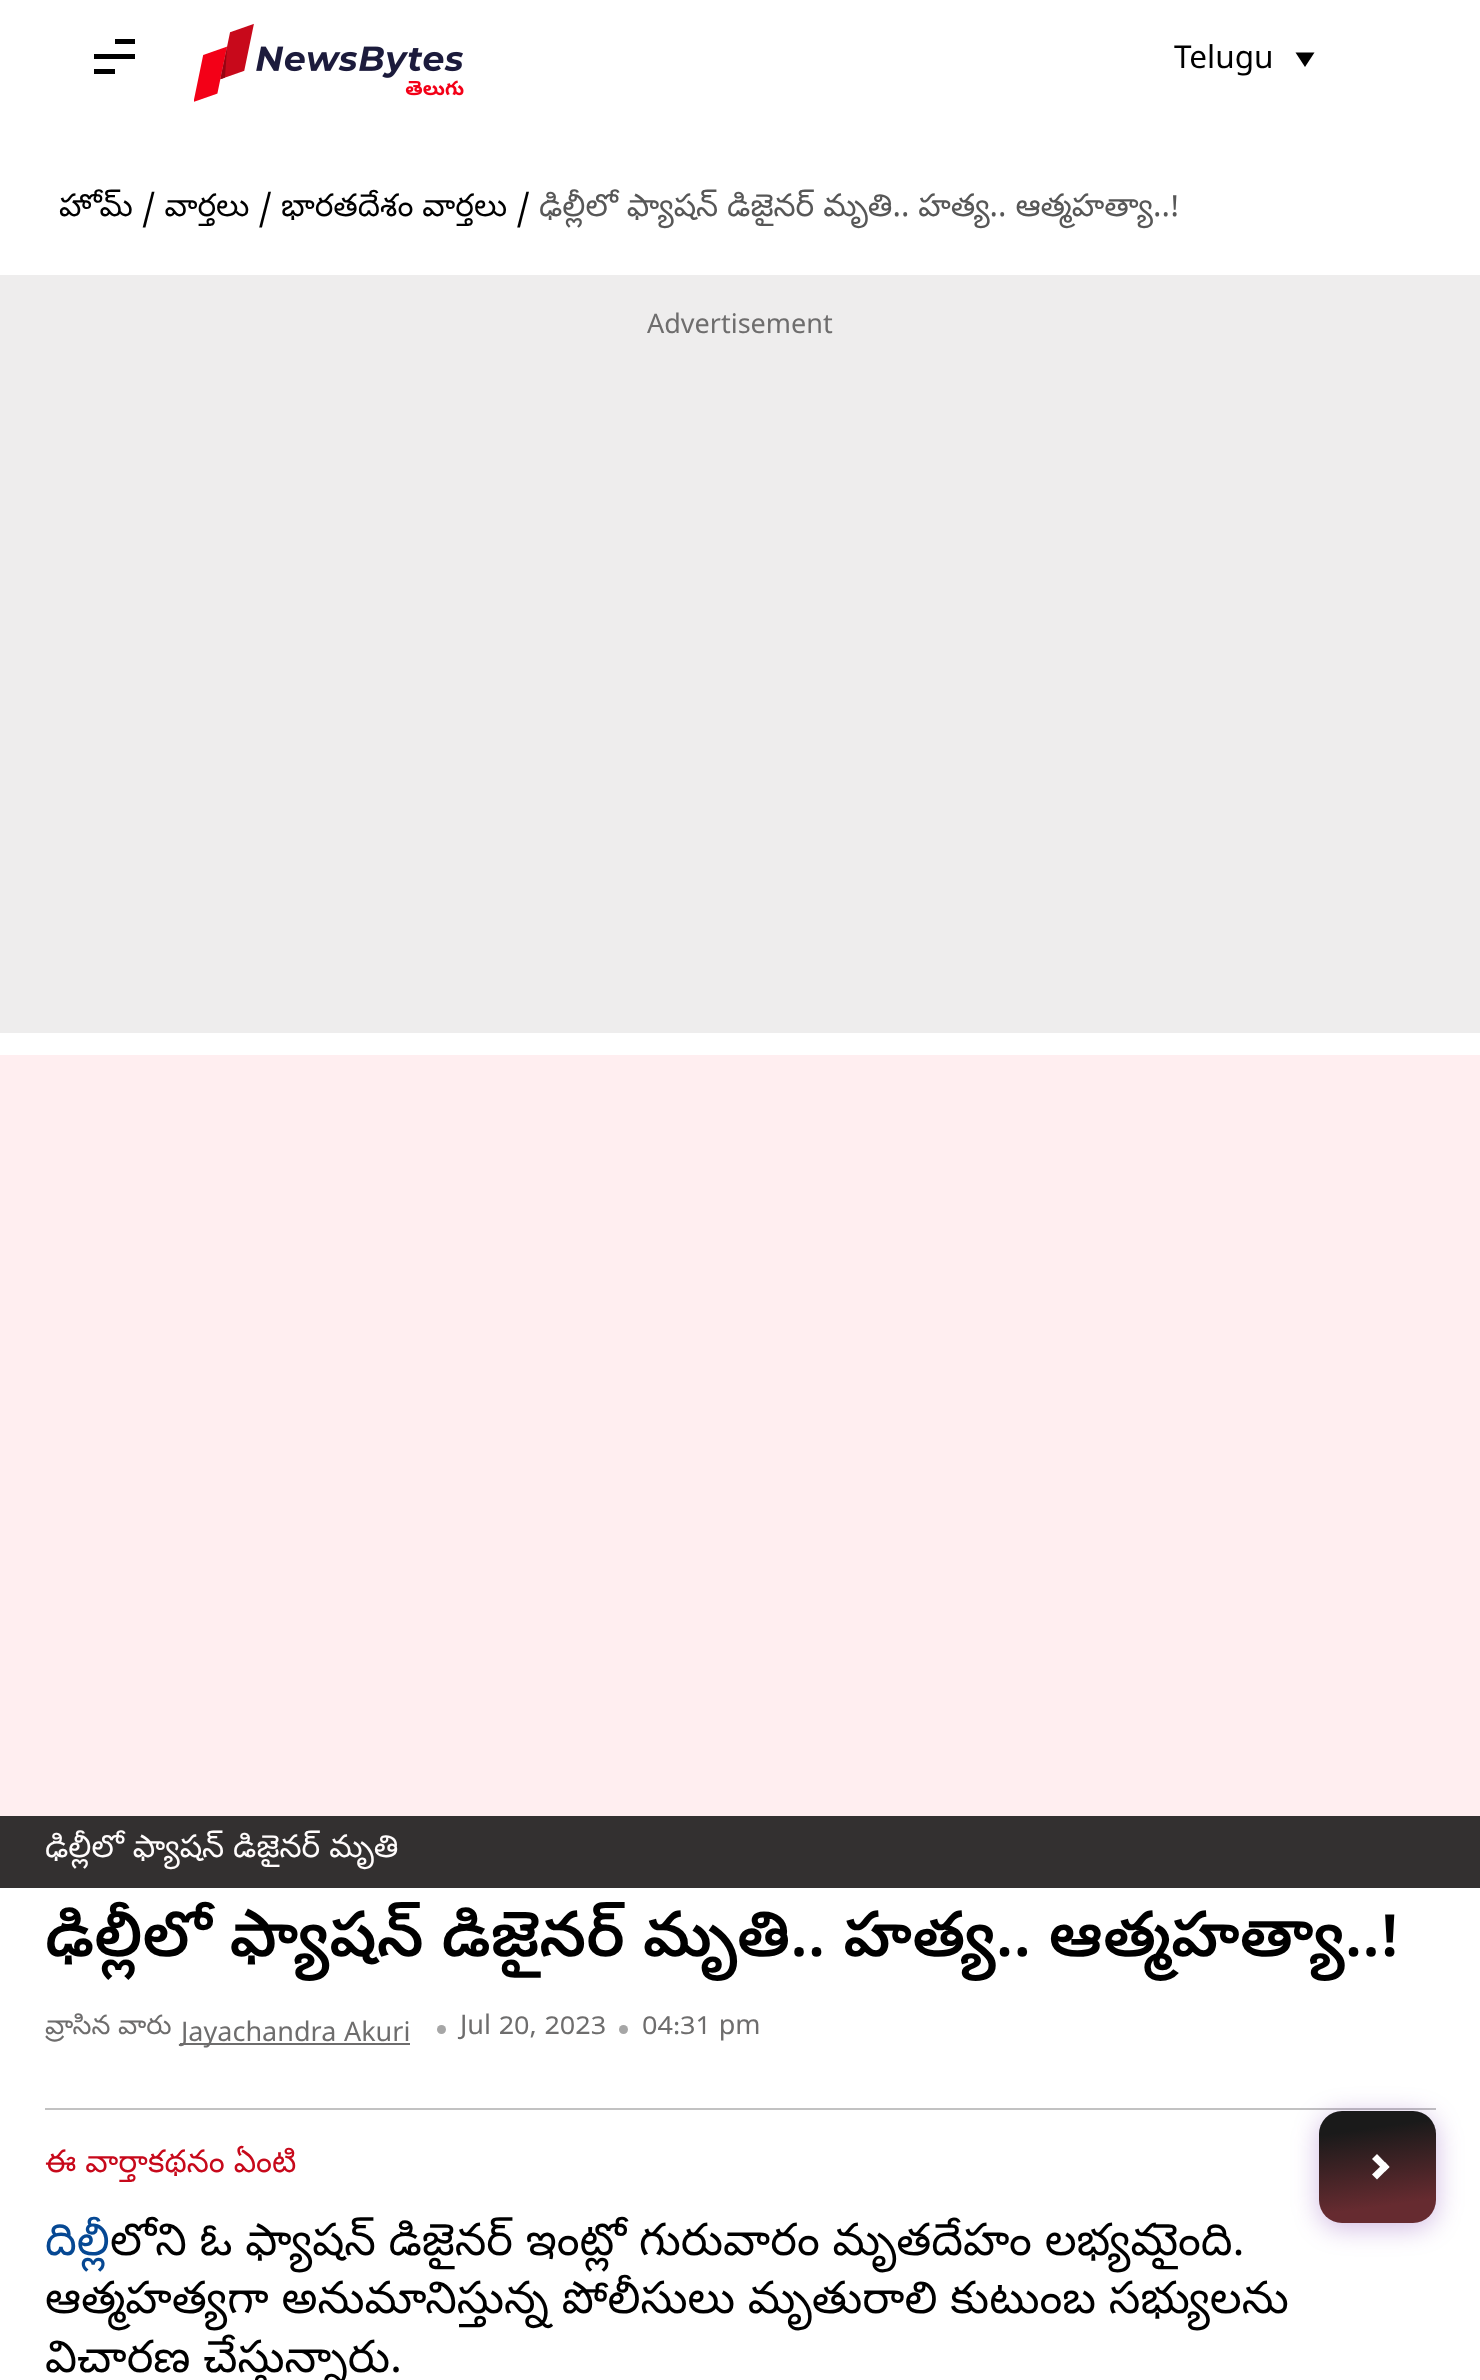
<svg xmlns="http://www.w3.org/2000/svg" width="1480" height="2380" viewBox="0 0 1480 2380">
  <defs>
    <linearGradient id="g1" gradientUnits="userSpaceOnUse" x1="1368" y1="2104" x2="1386" y2="2230"><stop offset="0.19" stop-color="rgb(26,26,26)"/><stop offset="0.81" stop-color="rgb(102,43,48)"/></linearGradient>
  </defs>
  <rect width="100%" height="100%" fill="rgb(255,255,255)"/>
  <path d="M115 39H135V44H115ZM94 54H135V59H94ZM94 69H115V74H94Z" fill="rgb(0,0,0)"/>
  <image x="194" y="23" width="270" height="79" href="pic1.png"/>
  <text x="1174" y="68" font-family="Noto Sans Telugu" font-size="31.5" fill="rgb(0,0,0)">Telugu</text>
  <path d="M1295.5 52.5H1314.5L1305 67Z" fill="rgb(0,0,0)"/>
  <text x="59" y="216" font-family="Noto Sans Telugu" font-size="31.5" fill="rgb(0,0,0)">హోమ్ / వార్తలు / భారతదేశం వార్తలు /</text>
  <text x="539" y="216" font-family="Noto Sans Telugu" font-size="31.5" fill="rgb(87,87,87)">ఢిల్లీలో ఫ్యాషన్ డిజైనర్ మృతి.. హత్య.. ఆత్మహత్యా..!</text>
  <rect x="0" y="275" width="1480" height="758" fill="rgb(238,237,237)"/>
  <text x="647" y="333" font-family="Noto Sans Telugu" font-size="27" fill="rgb(110,109,109)">Advertisement</text>
  <rect x="0" y="1055" width="1480" height="761" fill="rgb(255,238,240)"/>
  <rect x="0" y="1816" width="1480" height="72" fill="rgb(51,48,48)"/>
  <text x="45" y="1857" font-family="Noto Sans Telugu" font-size="31.5" fill="rgb(255,252,252)">ఢిల్లీలో ఫ్యాషన్ డిజైనర్ మృతి</text>
  <text x="45" y="1956" font-family="Noto Sans Telugu" font-size="63" font-weight="600" fill="rgb(0,0,0)">ఢిల్లీలో ఫ్యాషన్ డిజైనర్ మృతి.. హత్య.. ఆత్మహత్యా..!</text>
  <text x="45" y="2034" font-family="Noto Sans Telugu" font-size="27" fill="rgb(110,109,109)">వ్రాసిన వారు</text>
  <rect x="180" y="2043" width="230" height="2" fill="rgb(110,109,109)"/>
  <text x="181" y="2041" font-family="Noto Sans Telugu" font-size="27" fill="rgb(110,109,109)">Jayachandra Akuri</text>
  <circle cx="441.5" cy="2029.5" r="4.5" fill="rgb(166,166,166)"/>
  <text x="460" y="2034" font-family="Noto Sans Telugu" font-size="27" fill="rgb(110,109,109)">Jul 20, 2023</text>
  <circle cx="623.5" cy="2029.5" r="4.5" fill="rgb(166,166,166)"/>
  <text x="642" y="2034" font-family="Noto Sans Telugu" font-size="27" fill="rgb(110,109,109)">04:31 pm</text>
  <rect x="45" y="2108" width="1391" height="2" fill="rgb(194,194,194)"/>
  <text x="45" y="2172" font-family="Noto Sans Telugu" font-size="31.5" fill="rgb(199,9,27)">ఈ వార్తాకథనం ఏంటి</text>
  <text x="45" y="2255" font-family="Noto Sans Telugu" font-size="45" fill="rgb(6,72,147)">దిల్లీ</text>
  <g font-family="Noto Sans Telugu" font-size="45" fill="rgb(0,0,0)">
    <text x="110" y="2255">లోని ఓ ఫ్యాషన్ డిజైనర్ ఇంట్లో గురువారం మృతదేహం లభ్యమైంది.</text>
    <text>
      <tspan x="45" y="2313">ఆత్మహత్యగా అనుమానిస్తున్న పోలీసులు మృతురాలి కుటుంబ సభ్యులను</tspan>
      <tspan x="45" y="2372">విచారణ చేస్తున్నారు.</tspan>
    </text>
  </g>
  <rect x="1319" y="2115" width="117" height="113" rx="23" fill="rgba(85,1,152,0.27)" filter="blur(13.5px)"/>
  <rect x="1319" y="2111" width="117" height="112" rx="23" fill="url(#g1)"/>
  <path d="M1389.5 2167L1377 2179.5L1372 2174.5L1385 2162Z" fill="rgb(255,255,255)"/>
  <path d="M1389.5 2167L1385 2171.5L1372 2159L1377 2154Z" fill="rgb(255,255,255)"/>
</svg>
